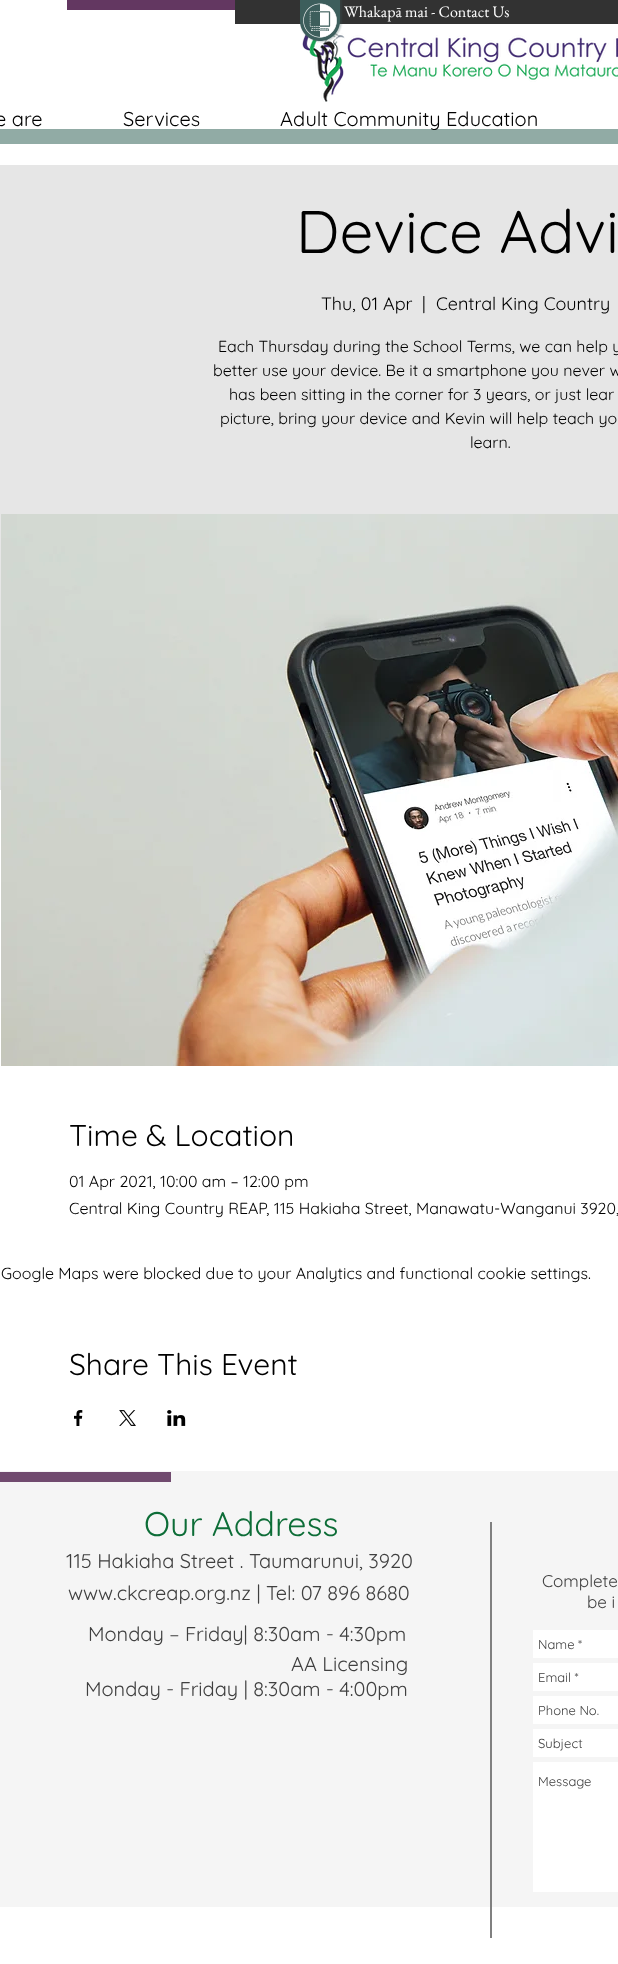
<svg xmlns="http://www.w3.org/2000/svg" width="618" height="1964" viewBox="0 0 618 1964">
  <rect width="100%" height="100%" fill="rgb(255,255,255)"/>
  <rect x="0" y="1471" width="618" height="436" fill="rgb(245,245,245)"/>
  <rect x="235" y="0" width="383" height="24" fill="rgb(50,50,50)"/>
  <image x="302" y="33" width="316" height="69" href="pic2.png"/>
  <image x="300" y="0" width="43" height="43" href="pic1.png"/>
  <text x="344" y="17" font-family="EB Garamond" font-size="16" fill="rgb(255,255,255)">Whakapā mai - Contact Us</text>
  <rect x="67" y="0" width="168" height="10" fill="rgb(99,55,97)"/>
  <g font-family="Quicksand" font-size="20" fill="rgb(0,0,0)">
    <text x="-5" y="126">e are</text>
    <text x="123" y="126">Services</text>
  </g>
  <rect x="0" y="129" width="618" height="15" fill="rgb(145,171,165)"/>
  <text x="280" y="126" font-family="Quicksand" font-size="20" fill="rgb(0,0,0)">Adult Community Education</text>
  <rect x="0" y="165" width="618" height="625" fill="rgb(230,230,230)"/>
  <text x="296" y="253" font-family="Quicksand" font-size="60" fill="rgb(0,0,0)">Device Advi</text>
  <g font-family="Quicksand" font-size="18" fill="rgb(0,0,0)">
    <text x="321" y="310">Thu, 01 Apr</text>
    <text x="422" y="310">|</text>
    <text x="436" y="310">Central King Country</text>
  </g>
  <g font-family="Quicksand" font-size="16" fill="rgb(0,0,0)">
    <text x="218" y="352">Each Thursday during the School Terms, we can help y</text>
    <text x="213" y="376">better use your device. Be it a smartphone you never w</text>
    <text x="229" y="400">has been sitting in the corner for 3 years, or just lear</text>
    <text x="220" y="424">picture, bring your device and Kevin will help teach yo</text>
    <text x="470" y="448">learn.</text>
  </g>
  <image x="1" y="514" width="617" height="552" href="pic3.png"/>
  <text x="69" y="1146" font-family="Quicksand" font-size="30" fill="rgb(0,0,0)">Time &amp; Location</text>
  <g font-family="Quicksand" font-size="16" fill="rgb(0,0,0)">
    <text>
      <tspan x="69" y="1187">01 Apr 2021, 10:00 am – 12:00 pm</tspan>
      <tspan x="69" y="1214">Central King Country REAP, 115 Hakiaha Street, Manawatu-Wanganui 3920,</tspan>
    </text>
    <text x="1" y="1279">Google Maps were blocked due to your Analytics and functional cookie settings.</text>
  </g>
  <text x="69" y="1375" font-family="Quicksand" font-size="30" fill="rgb(0,0,0)">Share This Event</text>
  <image x="74" y="1410" width="9" height="16" href="pic4.png"/>
  <image x="119" y="1410" width="17" height="16" href="pic5.png"/>
  <image x="167" y="1410" width="19" height="16" href="pic6.png"/>
  <rect x="0" y="1472" width="171" height="10" fill="rgb(113,75,111)"/>
  <text x="144" y="1536" font-family="Quicksand" font-size="34" fill="rgb(13,109,55)">Our Address</text>
  <rect x="490" y="1522" width="2" height="416" fill="rgb(128,128,128)"/>
  <g font-family="Quicksand" font-size="20" fill="rgb(64,64,64)">
    <text x="66" y="1568">115 Hakiaha Street . Taumarunui, 3920</text>
    <text x="68" y="1600">www.ckcreap.org.nz | Tel: 07 896 8680</text>
  </g>
  <g font-family="Quicksand" font-size="17" fill="rgb(64,64,64)">
    <text x="542" y="1587">Complete</text>
    <text x="587" y="1608">be i</text>
  </g>
  <g font-family="Quicksand" font-size="20" fill="rgb(64,64,64)">
    <text x="88" y="1641">Monday – Friday| 8:30am - 4:30pm</text>
    <text x="291" y="1671">AA Licensing</text>
    <text x="85" y="1696">Monday - Friday | 8:30am - 4:00pm</text>
  </g>
  <rect x="533" y="1630" width="85" height="28" fill="rgb(255,255,255)"/>
  <text x="538" y="1649" font-family="Quicksand" font-size="13" fill="rgb(64,64,64)">Name *</text>
  <rect x="533" y="1663" width="85" height="28" fill="rgb(255,255,255)"/>
  <text x="538" y="1682" font-family="Quicksand" font-size="13" fill="rgb(64,64,64)">Email *</text>
  <rect x="533" y="1696" width="85" height="28" fill="rgb(255,255,255)"/>
  <text x="538" y="1715" font-family="Quicksand" font-size="13" fill="rgb(64,64,64)">Phone No.</text>
  <rect x="533" y="1729" width="85" height="28" fill="rgb(255,255,255)"/>
  <text x="538" y="1748" font-family="Quicksand" font-size="13" fill="rgb(64,64,64)">Subject</text>
  <rect x="533" y="1762" width="85" height="130" fill="rgb(255,255,255)"/>
  <text x="538" y="1786" font-family="Quicksand" font-size="13" fill="rgb(64,64,64)">Message</text>
</svg>
